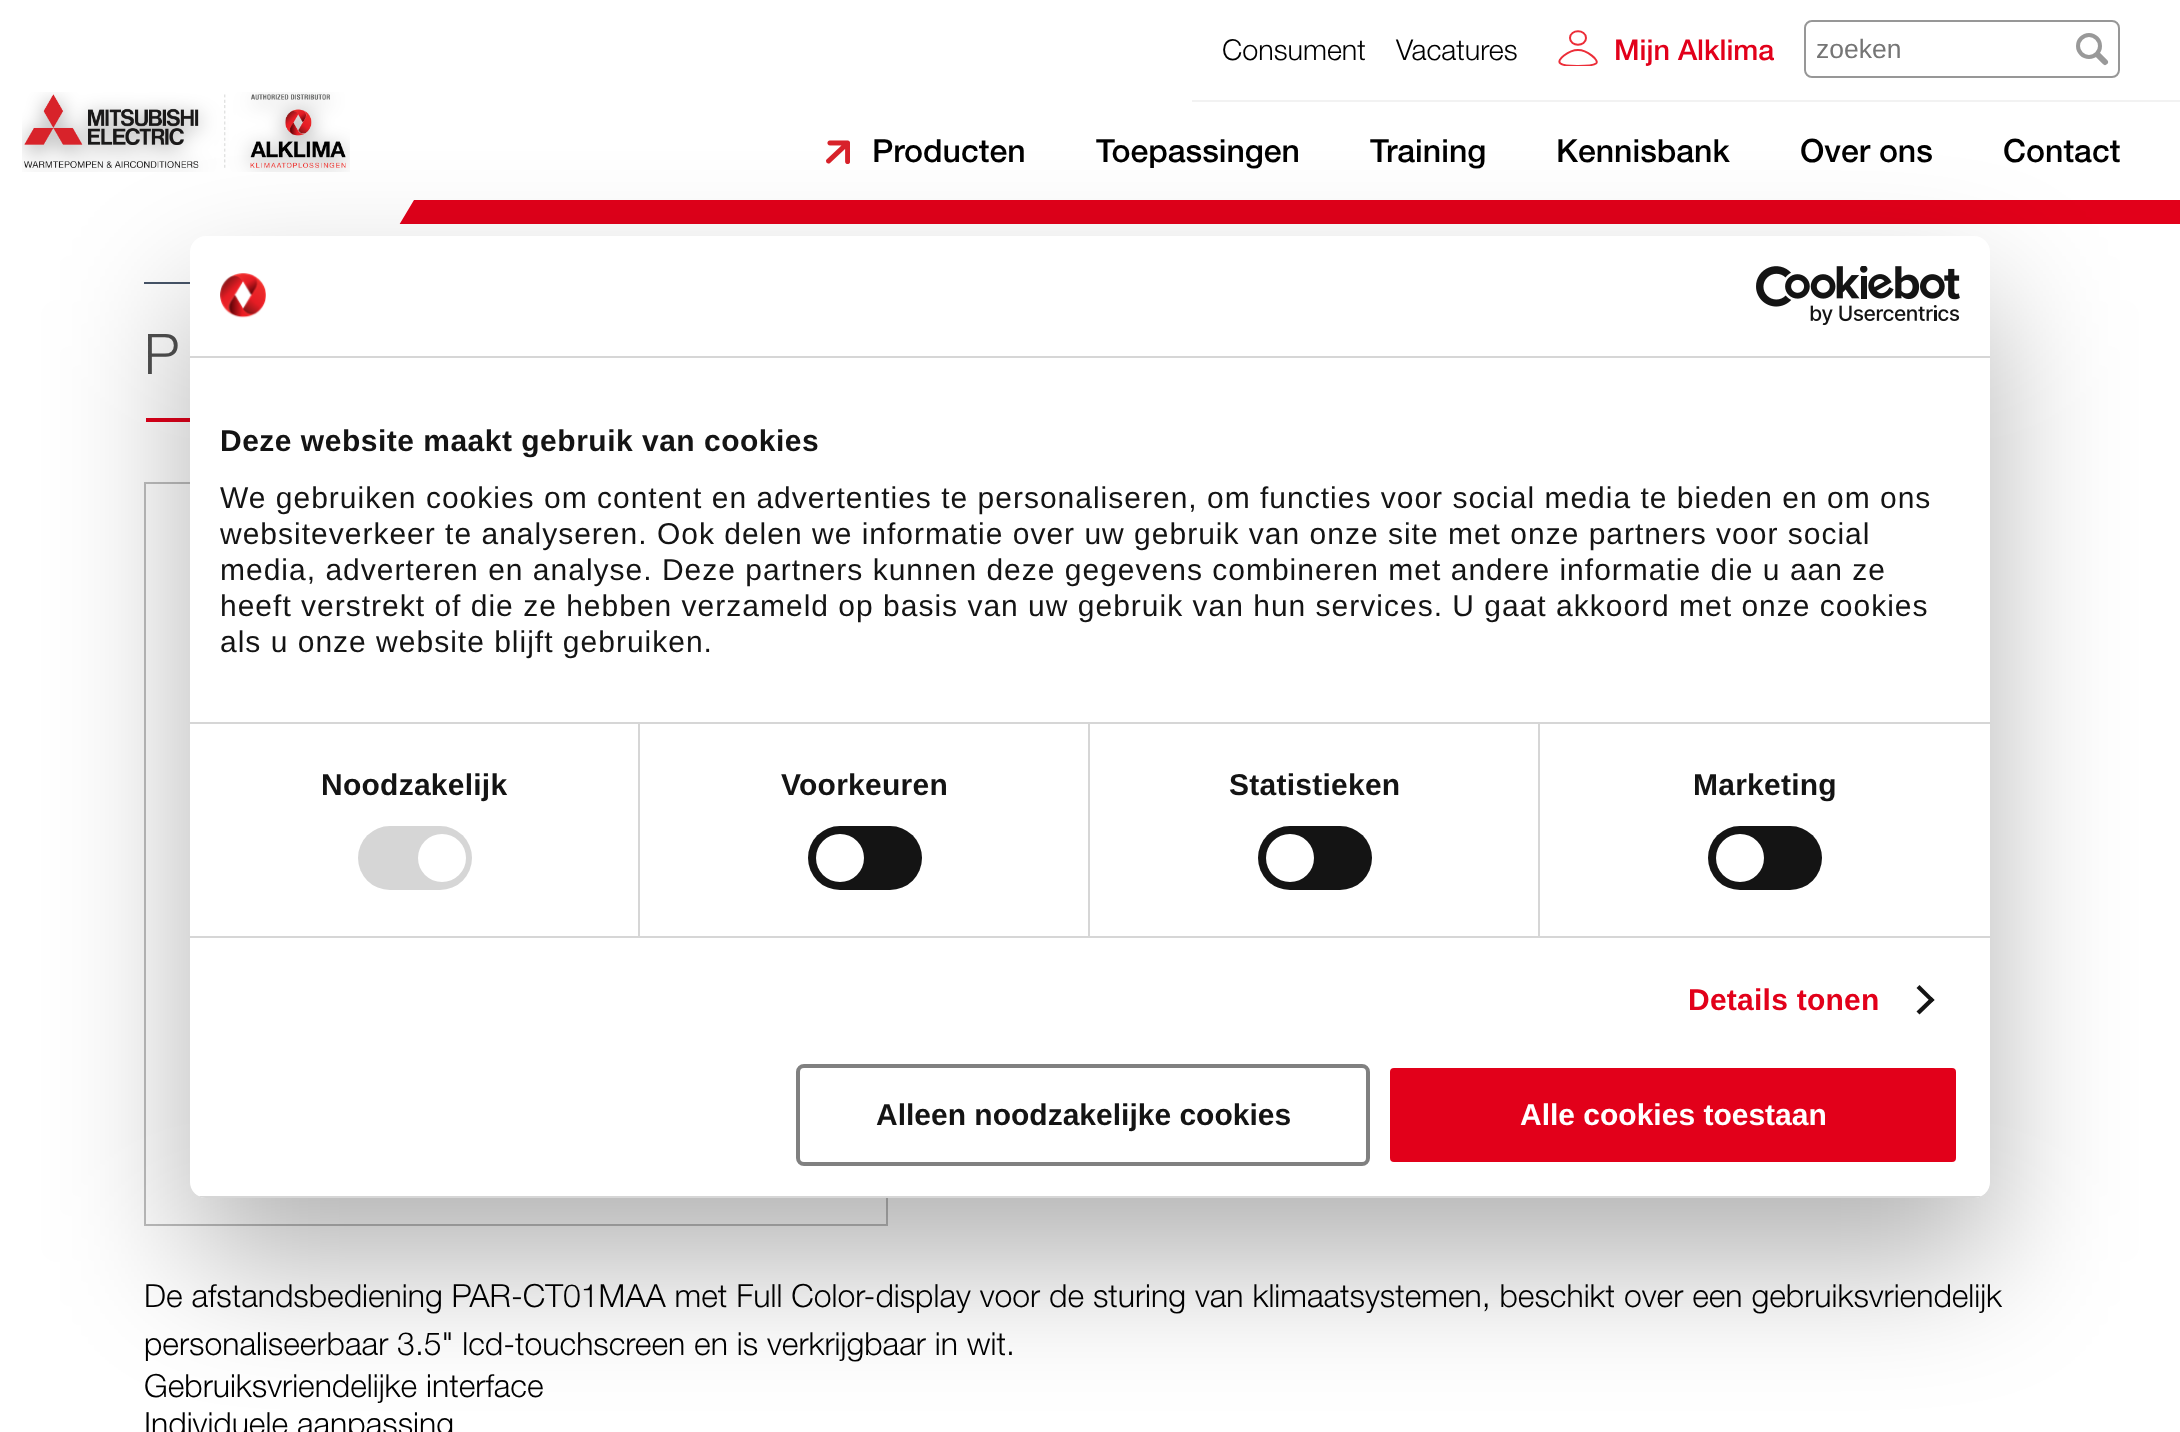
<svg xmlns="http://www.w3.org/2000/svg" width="2180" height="1432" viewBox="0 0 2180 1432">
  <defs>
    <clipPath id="clip1"><rect x="1558" y="30" width="40" height="36"/></clipPath>
    <clipPath id="clip2"><rect x="190" y="236" width="1800" height="962" rx="16"/></clipPath>
  </defs>
  <rect width="100%" height="100%" fill="rgb(255,255,255)"/>
  <rect x="399" y="200" width="1781" height="24" fill="rgb(226,0,26)"/>
  <path d="M0 0V272H371L414 200H2180V0Z" fill="rgb(255,255,255)"/>
  <image x="22" y="92" width="328" height="80" href="pic1.png"/>
  <rect x="1192" y="100" width="988" height="2" fill="rgb(242,242,242)"/>
  <g font-family="'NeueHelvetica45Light'" font-size="28.75" font-weight="300" fill="rgb(0,0,0)">
    <text x="1222" y="60">Consument</text>
    <text x="1396" y="60">Vacatures</text>
  </g>
  <g clip-path="url(#clip1)">
    <path d="M1586 38C1586 47 1570 47 1570 38C1570 29 1586 29 1586 38ZM1596 63.5C1591.5 66.5 1565 67 1560.5 63.5C1555.5 60 1569 50 1578 50C1587 50 1600 60.5 1596 63.5Z" fill="none" stroke="rgb(236,45,56)" stroke-width="2"/>
  </g>
  <text x="1614" y="60" font-family="'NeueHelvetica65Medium'" font-size="28.75" font-weight="500" fill="rgb(226,0,26)">Mijn Alklima</text>
  <rect x="1805" y="21" width="314" height="56" rx="7" fill="none" stroke="rgb(151,151,151)" stroke-width="2"/>
  <rect x="1806" y="22" width="260" height="54" rx="8" fill="rgb(255,255,255)"/>
  <text x="1816" y="58" font-family="Liberation Sans" font-size="26.5" fill="rgb(117,117,117)">zoeken</text>
  <path d="M2098 55L2105 62" fill="none" stroke="rgb(153,153,153)" stroke-width="6" stroke-linecap="round"/>
  <circle cx="2089" cy="46" r="11" fill="none" stroke="rgb(153,153,153)" stroke-width="4"/>
  <image x="826" y="140" width="24" height="24" href="pic2.png"/>
  <g font-family="'NeueHelvetica65Medium'" font-size="32" font-weight="500" fill="rgb(0,0,0)">
    <text x="872" y="162">Producten</text>
    <text x="1096" y="162">Toepassingen</text>
    <text x="1370" y="162">Training</text>
    <text x="1556" y="162">Kennisbank</text>
    <text x="1800" y="162">Over ons</text>
    <text x="2003" y="162">Contact</text>
  </g>
  <rect x="144" y="282" width="46" height="2" fill="rgb(71,85,105)"/>
  <text x="144" y="374" font-family="'NeueHelvetica45Light'" font-size="56" font-weight="300" fill="rgb(80,80,80)">P</text>
  <rect x="146" y="418" width="44" height="4" fill="rgb(226,0,26)"/>
  <rect x="145" y="483" width="742" height="742" fill="none" stroke="rgb(191,191,191)" stroke-width="2"/>
  <g font-family="'NeueHelvetica45Light'" font-size="32" font-weight="300" fill="rgb(0,0,0)">
    <text>
      <tspan x="144" y="1307">De afstandsbediening PAR-CT01MAA met Full Color-display voor de sturing van klimaatsystemen, beschikt over een gebruiksvriendelijk</tspan>
      <tspan x="144" y="1355">personaliseerbaar 3.5" lcd-touchscreen en is verkrijgbaar in wit.</tspan>
      <tspan x="144" y="1397">Gebruiksvriendelijke interface</tspan>
      <tspan x="144" y="1435">Individuele aanpassing</tspan>
    </text>
  </g>
  <rect x="190" y="300" width="1800" height="962" rx="16" fill="rgba(0,0,0,0.3)" filter="blur(68px)"/>
  <rect x="190" y="236" width="1800" height="962" rx="16" fill="rgb(255,255,255)"/>
  <rect x="190" y="356" width="1800" height="2" fill="rgb(214,214,214)"/>
  <image x="220" y="273" width="46" height="45" href="pic3.png"/>
  <image x="1756" y="266" width="204" height="60" href="pic4.png"/>
  <rect x="190" y="722" width="1800" height="2" fill="rgb(214,214,214)"/>
  <text x="220" y="451" font-family="Liberation Sans" font-size="30" font-weight="bold" letter-spacing="0.5" fill="rgb(20,20,20)">Deze website maakt gebruik van cookies</text>
  <g font-family="Liberation Sans" font-size="30" letter-spacing="1" fill="rgb(20,20,20)">
    <text>
      <tspan x="220" y="508">We gebruiken cookies om content en advertenties te personaliseren, om functies voor social media te bieden en om ons</tspan>
      <tspan x="220" y="544">websiteverkeer te analyseren. Ook delen we informatie over uw gebruik van onze site met onze partners voor social</tspan>
      <tspan x="220" y="580">media, adverteren en analyse. Deze partners kunnen deze gegevens combineren met andere informatie die u aan ze</tspan>
      <tspan x="220" y="616">heeft verstrekt of die ze hebben verzameld op basis van uw gebruik van hun services. U gaat akkoord met onze cookies</tspan>
      <tspan x="220" y="652">als u onze website blijft gebruiken.</tspan>
    </text>
  </g>
  <rect x="190" y="936" width="1800" height="2" fill="rgb(214,214,214)"/>
  <rect x="638" y="724" width="2" height="212" fill="rgb(214,214,214)"/>
  <text x="321" y="795" font-family="Liberation Sans" font-size="30" font-weight="bold" letter-spacing="0.25" fill="rgb(20,20,20)">Noodzakelijk</text>
  <rect x="358" y="826" width="114" height="64" rx="32" fill="rgb(214,214,214)"/>
  <circle cx="442" cy="858" r="24" fill="rgb(255,255,255)"/>
  <rect x="1088" y="724" width="2" height="212" fill="rgb(214,214,214)"/>
  <text x="781" y="795" font-family="Liberation Sans" font-size="30" font-weight="bold" letter-spacing="0.25" fill="rgb(20,20,20)">Voorkeuren</text>
  <rect x="808" y="826" width="114" height="64" rx="32" fill="rgb(20,20,20)"/>
  <circle cx="840" cy="858" r="24" fill="rgb(255,255,255)"/>
  <rect x="1538" y="724" width="2" height="212" fill="rgb(214,214,214)"/>
  <text x="1229" y="795" font-family="Liberation Sans" font-size="30" font-weight="bold" letter-spacing="0.25" fill="rgb(20,20,20)">Statistieken</text>
  <rect x="1258" y="826" width="114" height="64" rx="32" fill="rgb(20,20,20)"/>
  <circle cx="1290" cy="858" r="24" fill="rgb(255,255,255)"/>
  <text x="1693" y="795" font-family="Liberation Sans" font-size="30" font-weight="bold" letter-spacing="0.25" fill="rgb(20,20,20)">Marketing</text>
  <rect x="1708" y="826" width="114" height="64" rx="32" fill="rgb(20,20,20)"/>
  <circle cx="1740" cy="858" r="24" fill="rgb(255,255,255)"/>
  <text x="1688" y="1010" font-family="Liberation Sans" font-size="30" font-weight="bold" letter-spacing="0.25" fill="rgb(226,0,26)">Details tonen</text>
  <path d="M1919.5 985L1934.5 1000L1931.5 1002.5L1916.5 988Z" fill="rgb(20,20,20)"/>
  <path d="M1931.5 997L1934.5 1000L1919.5 1014.5L1916.5 1011.5Z" fill="rgb(20,20,20)"/>
  <g clip-path="url(#clip2)">
    <rect x="190" y="1196" width="1800" height="2" fill="rgb(214,214,214)"/>
  </g>
  <rect x="798" y="1066" width="570" height="98" rx="6" fill="none" stroke="rgb(128,128,128)" stroke-width="4"/>
  <text x="876" y="1125" font-family="Liberation Sans" font-size="30" font-weight="bold" fill="rgb(20,20,20)">Alleen noodzakelijke cookies</text>
  <rect x="1388" y="1066" width="570" height="98" rx="6" fill="rgb(226,0,26)" stroke="rgb(255,255,255)" stroke-width="4"/>
  <text x="1520" y="1125" font-family="Liberation Sans" font-size="30" font-weight="bold" fill="rgb(255,255,255)">Alle cookies toestaan</text>
</svg>
